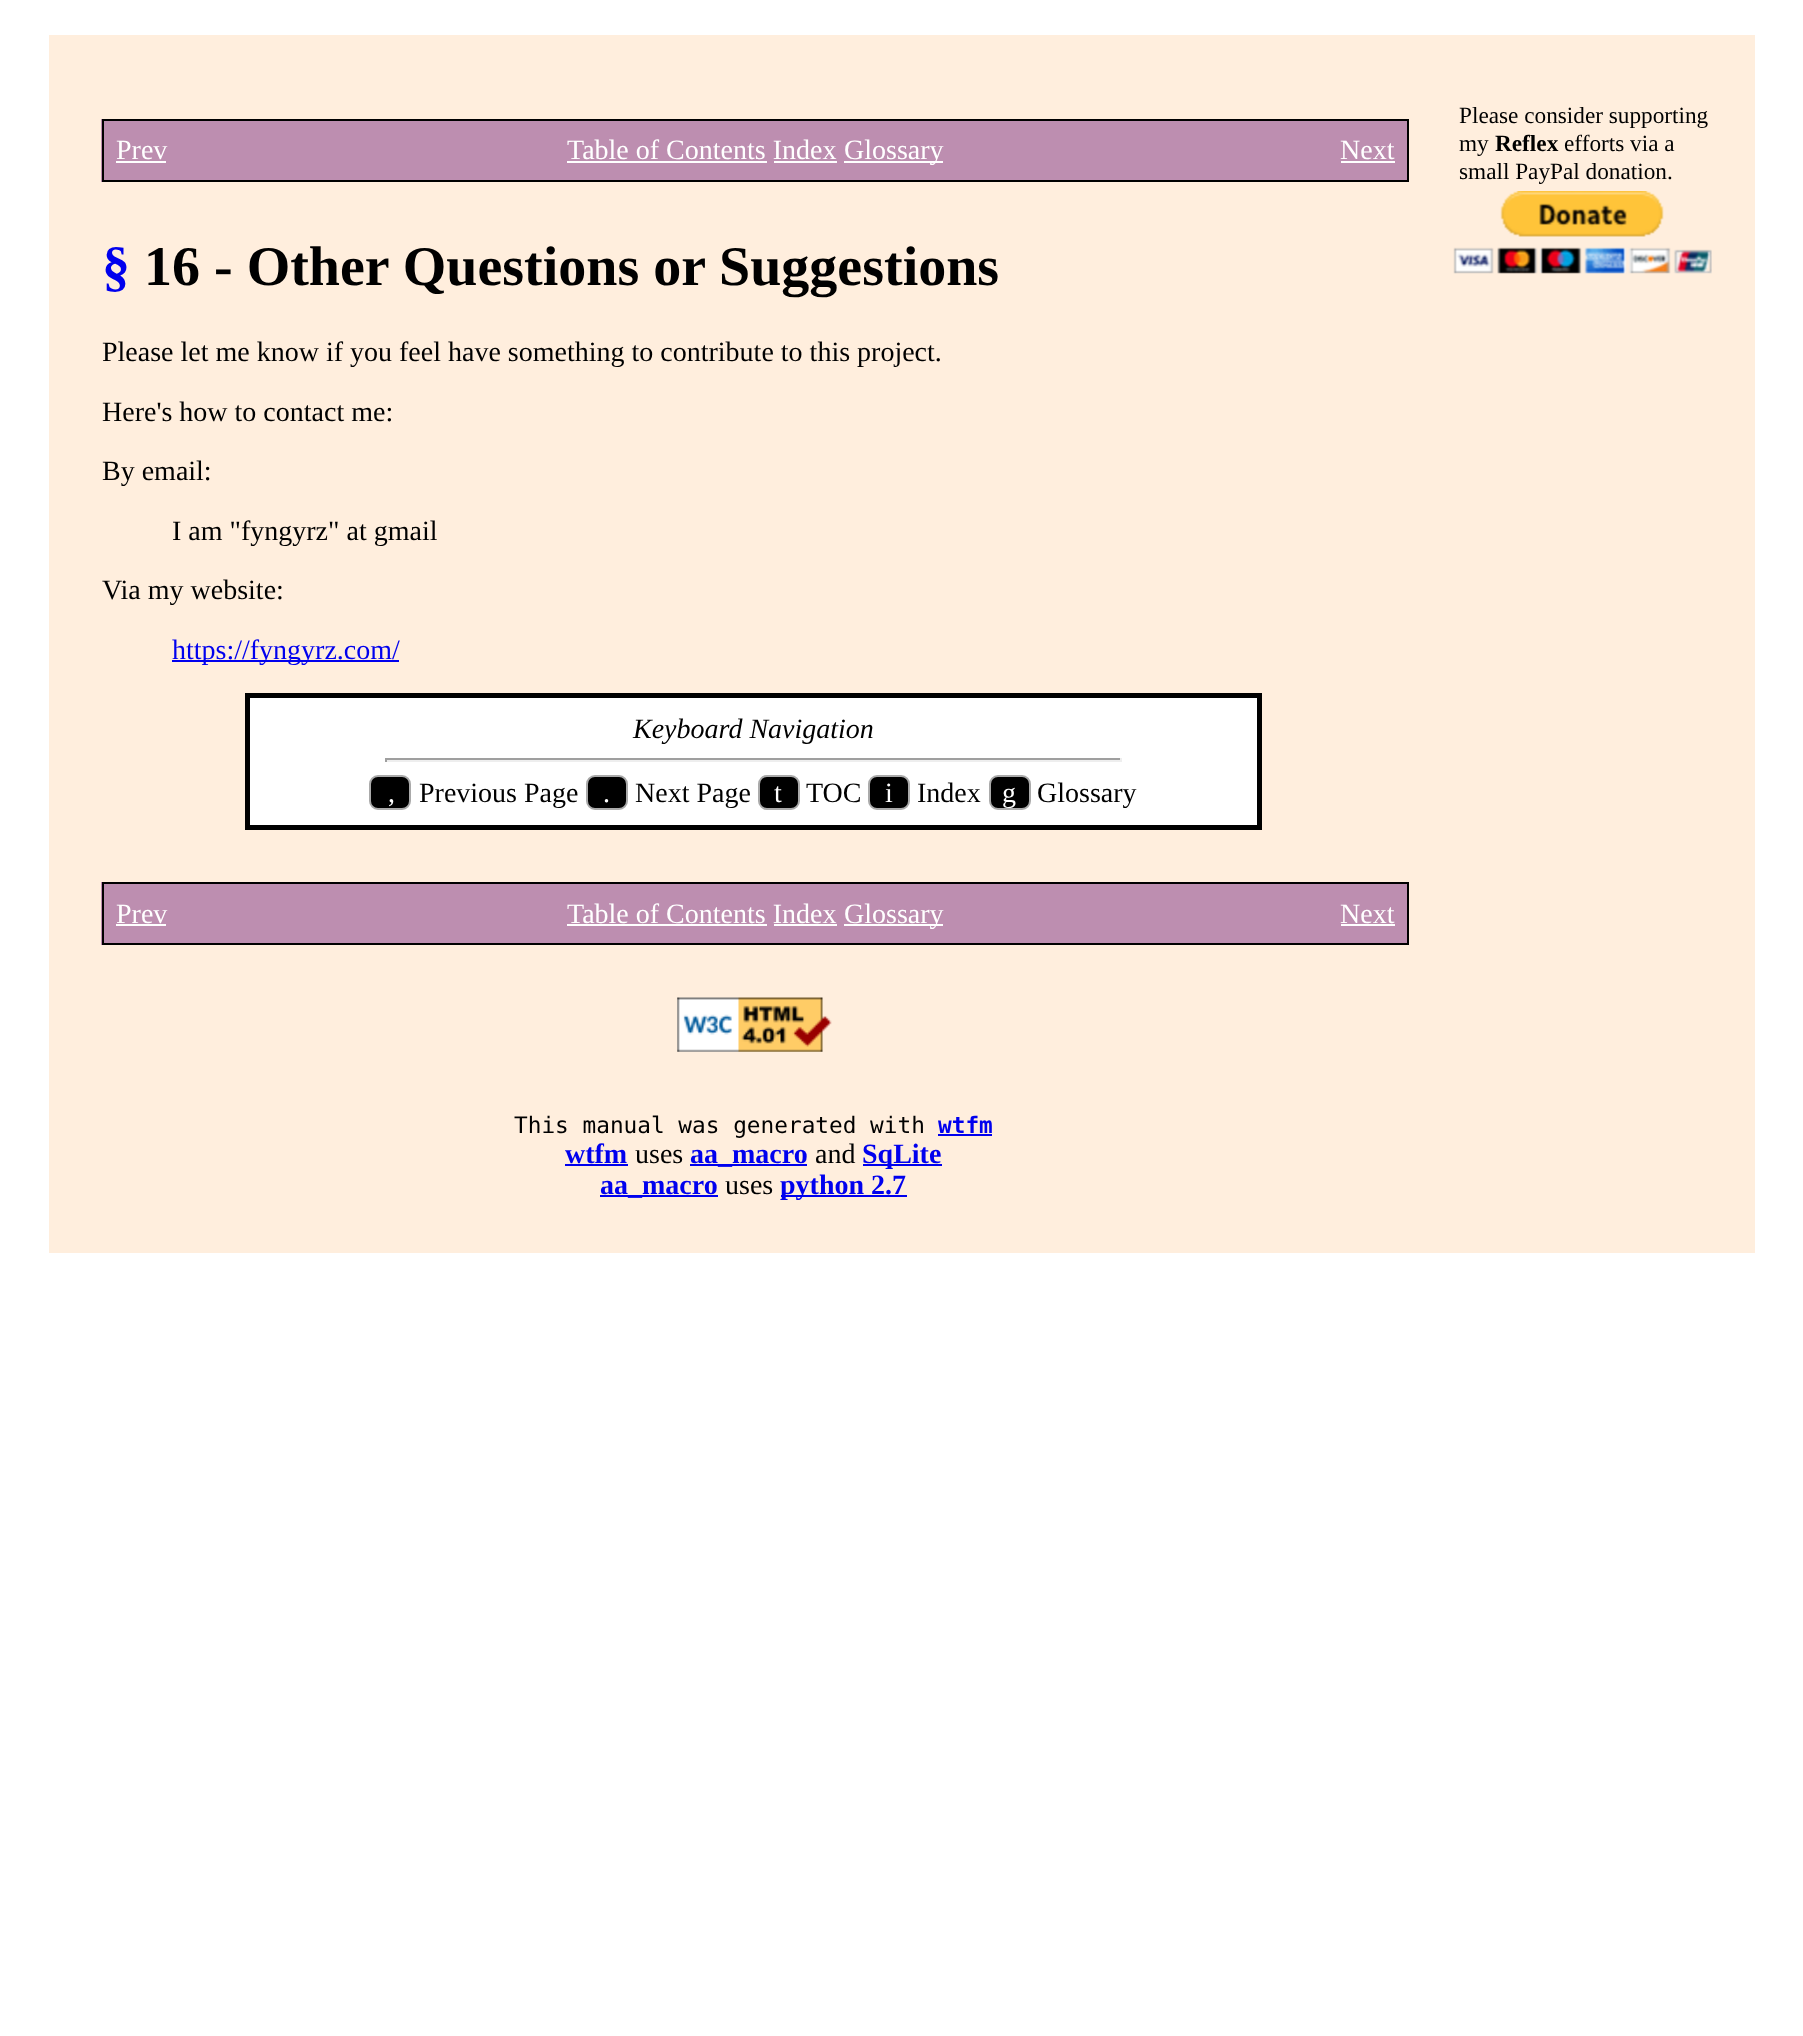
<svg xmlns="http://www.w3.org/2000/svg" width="1803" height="2036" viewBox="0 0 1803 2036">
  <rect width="100%" height="100%" fill="rgb(255,255,255)"/>
  <rect x="49" y="35" width="1706" height="1218" fill="rgb(255,238,221)"/>
  <rect x="101" y="119" width="1306" height="63" fill="rgb(189,142,176)"/>
  <rect x="103" y="120" width="1305" height="61" fill="none" stroke="rgb(0,0,0)" stroke-width="2"/>
  <text x="116" y="159" font-family="Liberation Serif" font-size="28" fill="rgb(255,255,255)">Prev</text>
  <rect x="116" y="161" width="50" height="2" fill="rgb(255,255,255)"/>
  <text x="567" y="159" font-family="Liberation Serif" font-size="28" fill="rgb(255,255,255)">Table of Contents Index</text>
  <rect x="567" y="161" width="200" height="2" fill="rgb(255,255,255)"/>
  <rect x="844" y="161" width="99" height="2" fill="rgb(255,255,255)"/>
  <text x="844" y="159" font-family="Liberation Serif" font-size="28" fill="rgb(255,255,255)">Glossary</text>
  <rect x="774" y="161" width="63" height="2" fill="rgb(255,255,255)"/>
  <text x="1340" y="159" font-family="Liberation Serif" font-size="28" fill="rgb(255,255,255)">Next</text>
  <rect x="1341" y="161" width="54" height="2" fill="rgb(255,255,255)"/>
  <text x="102" y="285" font-family="Liberation Serif" font-size="56" font-weight="bold" fill="rgb(0,0,238)">§</text>
  <text x="144" y="285" font-family="Liberation Serif" font-size="56" font-weight="bold" fill="rgb(0,0,0)">16 - Other Questions or Suggestions</text>
  <g font-family="Liberation Serif" font-size="28" fill="rgb(0,0,0)">
    <text x="102" y="361">Please let me know if you feel have something to contribute to this project.</text>
    <text x="102" y="421">Here's how to contact me:</text>
    <text x="102" y="480">By email:</text>
    <text x="172" y="540">I am "fyngyrz" at gmail</text>
    <text x="102" y="599">Via my website:</text>
  </g>
  <rect x="172" y="660" width="227" height="2" fill="rgb(0,0,238)"/>
  <text x="172" y="659" font-family="Liberation Serif" font-size="28" fill="rgb(0,0,238)">https://fyngyrz.com/</text>
  <rect x="247.5" y="695.5" width="1012" height="132" fill="rgb(255,255,255)" stroke="rgb(0,0,0)" stroke-width="5"/>
  <text x="633" y="738" font-family="Liberation Serif" font-size="28" font-style="italic" fill="rgb(0,0,0)">Keyboard Navigation</text>
  <rect x="385" y="758" width="737" height="2" fill="rgb(159,159,159)"/>
  <rect x="1120" y="758" width="2" height="4" fill="rgb(238,238,238)"/>
  <rect x="385" y="760" width="737" height="2" fill="rgb(238,238,238)"/>
  <rect x="385" y="758" width="2" height="4" fill="rgb(159,159,159)"/>
  <rect x="370" y="776" width="40" height="33" rx="8" fill="rgb(0,0,0)" stroke="rgb(170,170,170)" stroke-width="2"/>
  <text x="388" y="802" font-family="Liberation Serif" font-size="28" fill="rgb(255,255,255)">,</text>
  <text x="419" y="802" font-family="Liberation Serif" font-size="28" fill="rgb(0,0,0)">Previous Page</text>
  <rect x="587" y="776" width="40" height="33" rx="8" fill="rgb(0,0,0)" stroke="rgb(170,170,170)" stroke-width="2"/>
  <text x="603" y="802" font-family="Liberation Serif" font-size="28" fill="rgb(255,255,255)">.</text>
  <text x="635" y="802" font-family="Liberation Serif" font-size="28" fill="rgb(0,0,0)">Next Page</text>
  <rect x="759" y="776" width="40" height="33" rx="8" fill="rgb(0,0,0)" stroke="rgb(170,170,170)" stroke-width="2"/>
  <text x="774" y="802" font-family="Liberation Serif" font-size="28" fill="rgb(255,255,255)">t</text>
  <text x="806" y="802" font-family="Liberation Serif" font-size="28" fill="rgb(0,0,0)">TOC</text>
  <rect x="869" y="776" width="40" height="33" rx="8" fill="rgb(0,0,0)" stroke="rgb(170,170,170)" stroke-width="2"/>
  <text x="885" y="802" font-family="Liberation Serif" font-size="28" fill="rgb(255,255,255)">i</text>
  <text x="917" y="802" font-family="Liberation Serif" font-size="28" fill="rgb(0,0,0)">Index</text>
  <rect x="990" y="776" width="40" height="33" rx="8" fill="rgb(0,0,0)" stroke="rgb(170,170,170)" stroke-width="2"/>
  <text x="1002" y="802" font-family="Liberation Serif" font-size="28" fill="rgb(255,255,255)">g</text>
  <text x="1037" y="802" font-family="Liberation Serif" font-size="28" fill="rgb(0,0,0)">Glossary</text>
  <rect x="101" y="882" width="1306" height="63" fill="rgb(189,142,176)"/>
  <rect x="103" y="883" width="1305" height="61" fill="none" stroke="rgb(0,0,0)" stroke-width="2"/>
  <text x="116" y="923" font-family="Liberation Serif" font-size="28" fill="rgb(255,255,255)">Prev</text>
  <rect x="116" y="924" width="50" height="2" fill="rgb(255,255,255)"/>
  <text x="567" y="923" font-family="Liberation Serif" font-size="28" fill="rgb(255,255,255)">Table of Contents Index</text>
  <rect x="567" y="924" width="200" height="2" fill="rgb(255,255,255)"/>
  <rect x="844" y="924" width="99" height="2" fill="rgb(255,255,255)"/>
  <text x="844" y="923" font-family="Liberation Serif" font-size="28" fill="rgb(255,255,255)">Glossary</text>
  <rect x="774" y="924" width="63" height="2" fill="rgb(255,255,255)"/>
  <text x="1340" y="923" font-family="Liberation Serif" font-size="28" fill="rgb(255,255,255)">Next</text>
  <rect x="1341" y="924" width="54" height="2" fill="rgb(255,255,255)"/>
  <image x="677" y="997" width="155" height="55" href="pic1.png"/>
  <text x="514" y="1133" font-family="DejaVu Sans Mono" font-size="22.75" fill="rgb(0,0,0)">This manual was generated with</text>
  <text x="938" y="1133" font-family="DejaVu Sans Mono" font-size="22.75" font-weight="bold" fill="rgb(0,0,238)">wtfm</text>
  <rect x="938" y="1134" width="54" height="2" fill="rgb(0,0,238)"/>
  <text x="565" y="1163" font-family="Liberation Serif" font-size="28" font-weight="bold" fill="rgb(0,0,238)">wtfm</text>
  <rect x="565" y="1164" width="63" height="2" fill="rgb(0,0,238)"/>
  <text x="635" y="1163" font-family="Liberation Serif" font-size="28" fill="rgb(0,0,0)">uses</text>
  <rect x="690" y="1164" width="117" height="2" fill="rgb(0,0,238)"/>
  <text x="690" y="1163" font-family="Liberation Serif" font-size="28" font-weight="bold" fill="rgb(0,0,238)">aa_macro</text>
  <text x="815" y="1163" font-family="Liberation Serif" font-size="28" fill="rgb(0,0,0)">and</text>
  <rect x="863" y="1164" width="79" height="2" fill="rgb(0,0,238)"/>
  <text x="862" y="1163" font-family="Liberation Serif" font-size="28" font-weight="bold" fill="rgb(0,0,238)">SqLite</text>
  <rect x="600" y="1195" width="118" height="2" fill="rgb(0,0,238)"/>
  <text x="600" y="1194" font-family="Liberation Serif" font-size="28" font-weight="bold" fill="rgb(0,0,238)">aa_macro</text>
  <text x="725" y="1194" font-family="Liberation Serif" font-size="28" fill="rgb(0,0,0)">uses</text>
  <rect x="781" y="1195" width="126" height="2" fill="rgb(0,0,238)"/>
  <text x="780" y="1194" font-family="Liberation Serif" font-size="28" font-weight="bold" fill="rgb(0,0,238)">python 2.7</text>
  <g font-family="Liberation Serif" font-size="23.25" fill="rgb(0,0,0)">
    <text>
      <tspan x="1459" y="123">Please consider supporting</tspan>
      <tspan x="1459" y="151">my</tspan>
    </text>
  </g>
  <text x="1495" y="151" font-family="Liberation Serif" font-size="23.25" font-weight="bold" fill="rgb(0,0,0)">Reflex</text>
  <g font-family="Liberation Serif" font-size="23.25" fill="rgb(0,0,0)">
    <text x="1564" y="151">efforts via a</text>
    <text x="1459" y="179">small PayPal donation.</text>
  </g>
  <image x="1453" y="191" width="259" height="83" href="pic2.png"/>
</svg>
